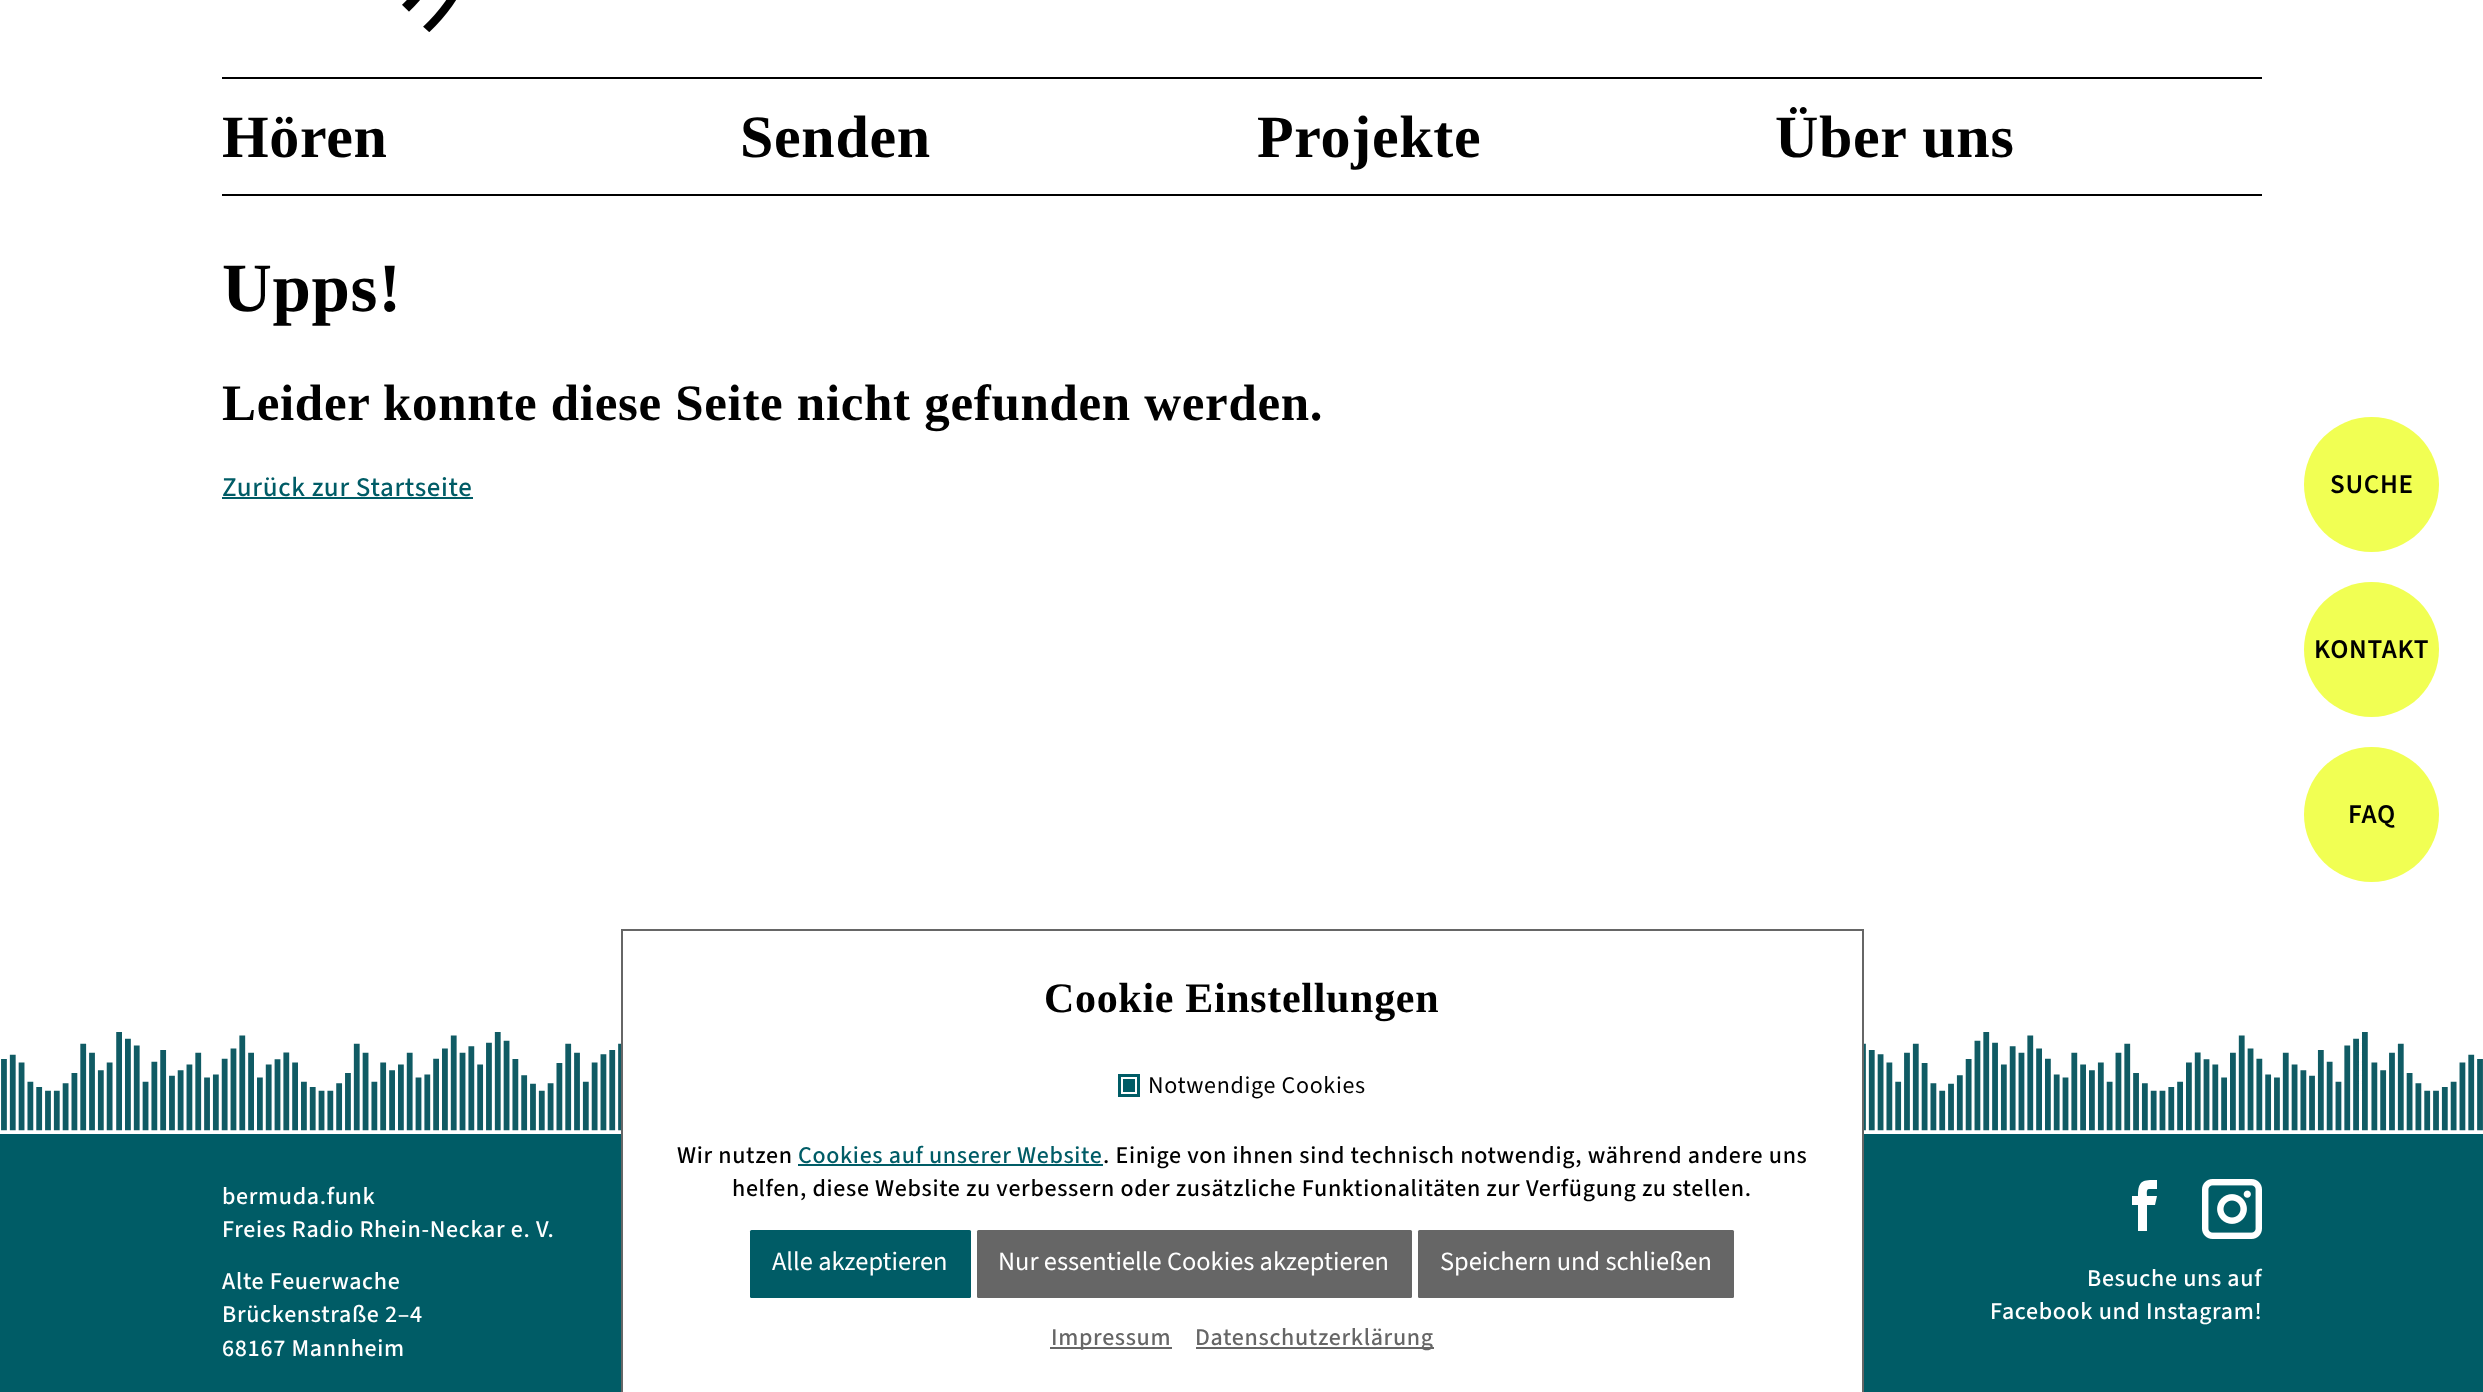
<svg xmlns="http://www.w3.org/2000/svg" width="2483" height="1392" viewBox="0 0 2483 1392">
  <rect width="100%" height="100%" fill="rgb(255,255,255)"/>
  <image x="402" y="0" width="54" height="32" href="pic1.png"/>
  <rect x="222" y="77" width="2040" height="2" fill="rgb(0,0,0)"/>
  <g font-family="Liberation Serif" font-size="60" font-weight="bold" letter-spacing="0.68" fill="rgb(0,0,0)">
    <text x="222" y="157">Hören</text>
    <text x="740" y="157">Senden</text>
    <text x="1257" y="157">Projekte</text>
    <text x="1775" y="157">Über uns</text>
  </g>
  <rect x="222" y="194" width="2040" height="2" fill="rgb(0,0,0)"/>
  <text x="222" y="311" font-family="Liberation Serif" font-size="69" font-weight="bold" letter-spacing="0.68" fill="rgb(0,0,0)">Upps!</text>
  <text x="222" y="420" font-family="Liberation Serif" font-size="51" font-weight="bold" letter-spacing="0.68" fill="rgb(0,0,0)">Leider konnte diese Seite nicht gefunden werden.</text>
  <text x="222" y="496" font-family="'Source Sans 3'" font-size="27" font-weight="200" letter-spacing="0.68" fill="rgb(0,92,102)">Zurück zur Startseite</text>
  <rect x="222" y="497" width="251" height="2" fill="rgb(0,92,102)"/>
  <circle cx="2371.5" cy="484.5" r="67.5" fill="rgb(241,255,83)"/>
  <text x="2330" y="493" font-family="'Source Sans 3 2'" font-size="27" font-weight="200" letter-spacing="0.68" fill="rgb(0,0,0)">SUCHE</text>
  <circle cx="2371.5" cy="649.5" r="67.5" fill="rgb(241,255,83)"/>
  <text x="2314" y="658" font-family="'Source Sans 3 2'" font-size="27" font-weight="200" letter-spacing="0.68" fill="rgb(0,0,0)">KONTAKT</text>
  <circle cx="2371.5" cy="814.5" r="67.5" fill="rgb(241,255,83)"/>
  <text x="2348" y="823" font-family="'Source Sans 3 2'" font-size="27" font-weight="200" letter-spacing="0.68" fill="rgb(0,0,0)">FAQ</text>
  <image x="1" y="1032" width="2482" height="99" href="pic2.png"/>
  <rect x="0" y="1134" width="2483" height="258" fill="rgb(0,92,102)"/>
  <rect x="623" y="1032" width="1239" height="360" fill="rgb(255,255,255)"/>
  <rect x="621" y="929" width="1242" height="2" fill="rgb(102,102,102)"/>
  <rect x="1862" y="929" width="2" height="463" fill="rgb(102,102,102)"/>
  <rect x="621" y="929" width="2" height="463" fill="rgb(102,102,102)"/>
  <text x="1044" y="1012" font-family="Liberation Serif" font-size="42" font-weight="bold" letter-spacing="0.68" fill="rgb(0,0,0)">Cookie Einstellungen</text>
  <rect x="1118" y="1074" width="22" height="23" rx="1.5" fill="rgb(0,92,102)"/>
  <rect x="1122" y="1078" width="14" height="15" fill="none" stroke="rgb(255,255,255)" stroke-width="2"/>
  <rect x="1119.5" y="1075.5" width="19" height="20" fill="none" stroke="rgb(0,92,102)" stroke-width="3"/>
  <text x="1148" y="1093" font-family="'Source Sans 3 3'" font-size="24" font-weight="200" letter-spacing="0.68" fill="rgb(0,0,0)">Notwendige Cookies</text>
  <text x="677" y="1163" font-family="'Source Sans 3'" font-size="24" font-weight="200" letter-spacing="0.68" fill="rgb(0,0,0)">Wir nutzen</text>
  <text x="798" y="1163" font-family="'Source Sans 3'" font-size="24" font-weight="200" letter-spacing="0.68" fill="rgb(0,92,102)">Cookies auf unserer Website</text>
  <rect x="798" y="1164" width="305" height="2" fill="rgb(0,92,102)"/>
  <g font-family="'Source Sans 3'" font-size="24" font-weight="200" letter-spacing="0.68" fill="rgb(0,0,0)">
    <text x="1103" y="1163">. Einige von ihnen sind technisch notwendig, während andere uns</text>
    <text x="732" y="1196">helfen, diese Website zu verbessern oder zusätzliche Funktionalitäten zur Verfügung zu stellen.</text>
  </g>
  <rect x="750" y="1230" width="221" height="68" rx="1.5" fill="rgb(0,92,102)"/>
  <text x="772" y="1270" font-family="'Source Sans 3 3'" font-size="26.4" font-weight="200" fill="rgb(255,255,255)">Alle akzeptieren</text>
  <rect x="977" y="1230" width="435" height="68" rx="1.5" fill="rgb(102,102,102)"/>
  <text x="998" y="1270" font-family="'Source Sans 3 3'" font-size="26.4" font-weight="200" fill="rgb(255,255,255)">Nur essentielle Cookies akzeptieren</text>
  <rect x="1418" y="1230" width="316" height="68" rx="1.5" fill="rgb(102,102,102)"/>
  <text x="1440" y="1270" font-family="'Source Sans 3 3'" font-size="26.4" font-weight="200" fill="rgb(255,255,255)">Speichern und schließen</text>
  <rect x="1050" y="1347" width="122" height="2" fill="rgb(102,102,102)"/>
  <text x="1051" y="1345" font-family="'Source Sans 3'" font-size="24" font-weight="200" letter-spacing="0.68" fill="rgb(102,102,102)">Impressum</text>
  <rect x="1196" y="1347" width="238" height="2" fill="rgb(102,102,102)"/>
  <text x="1195" y="1345" font-family="'Source Sans 3'" font-size="24" font-weight="200" letter-spacing="0.68" fill="rgb(102,102,102)">Datenschutzerklärung</text>
  <g font-family="'Source Sans 3'" font-size="24" font-weight="200" letter-spacing="0.68" fill="rgb(255,255,255)">
    <text>
      <tspan x="222" y="1204">bermuda.funk</tspan>
      <tspan x="222" y="1237">Freies Radio Rhein-Neckar e. V.</tspan>
    </text>
    <text>
      <tspan x="222" y="1289">Alte Feuerwache</tspan>
      <tspan x="222" y="1322">Brückenstraße 2–4</tspan>
      <tspan x="222" y="1356">68167 Mannheim</tspan>
    </text>
  </g>
  <path d="M2149 1189H2157V1180C2143 1180 2138 1180 2138 1196H2132V1205H2138V1231H2147V1205H2155L2157 1196H2147C2147 1194 2146 1189 2149 1189" fill="rgb(255,255,255)"/>
  <image x="2202" y="1179" width="60" height="60" href="pic3.png"/>
  <g font-family="'Source Sans 3'" font-size="24" font-weight="200" letter-spacing="0.68" fill="rgb(255,255,255)">
    <text x="2087" y="1286">Besuche uns auf</text>
    <text x="1990" y="1319">Facebook und Instagram!</text>
  </g>
</svg>
